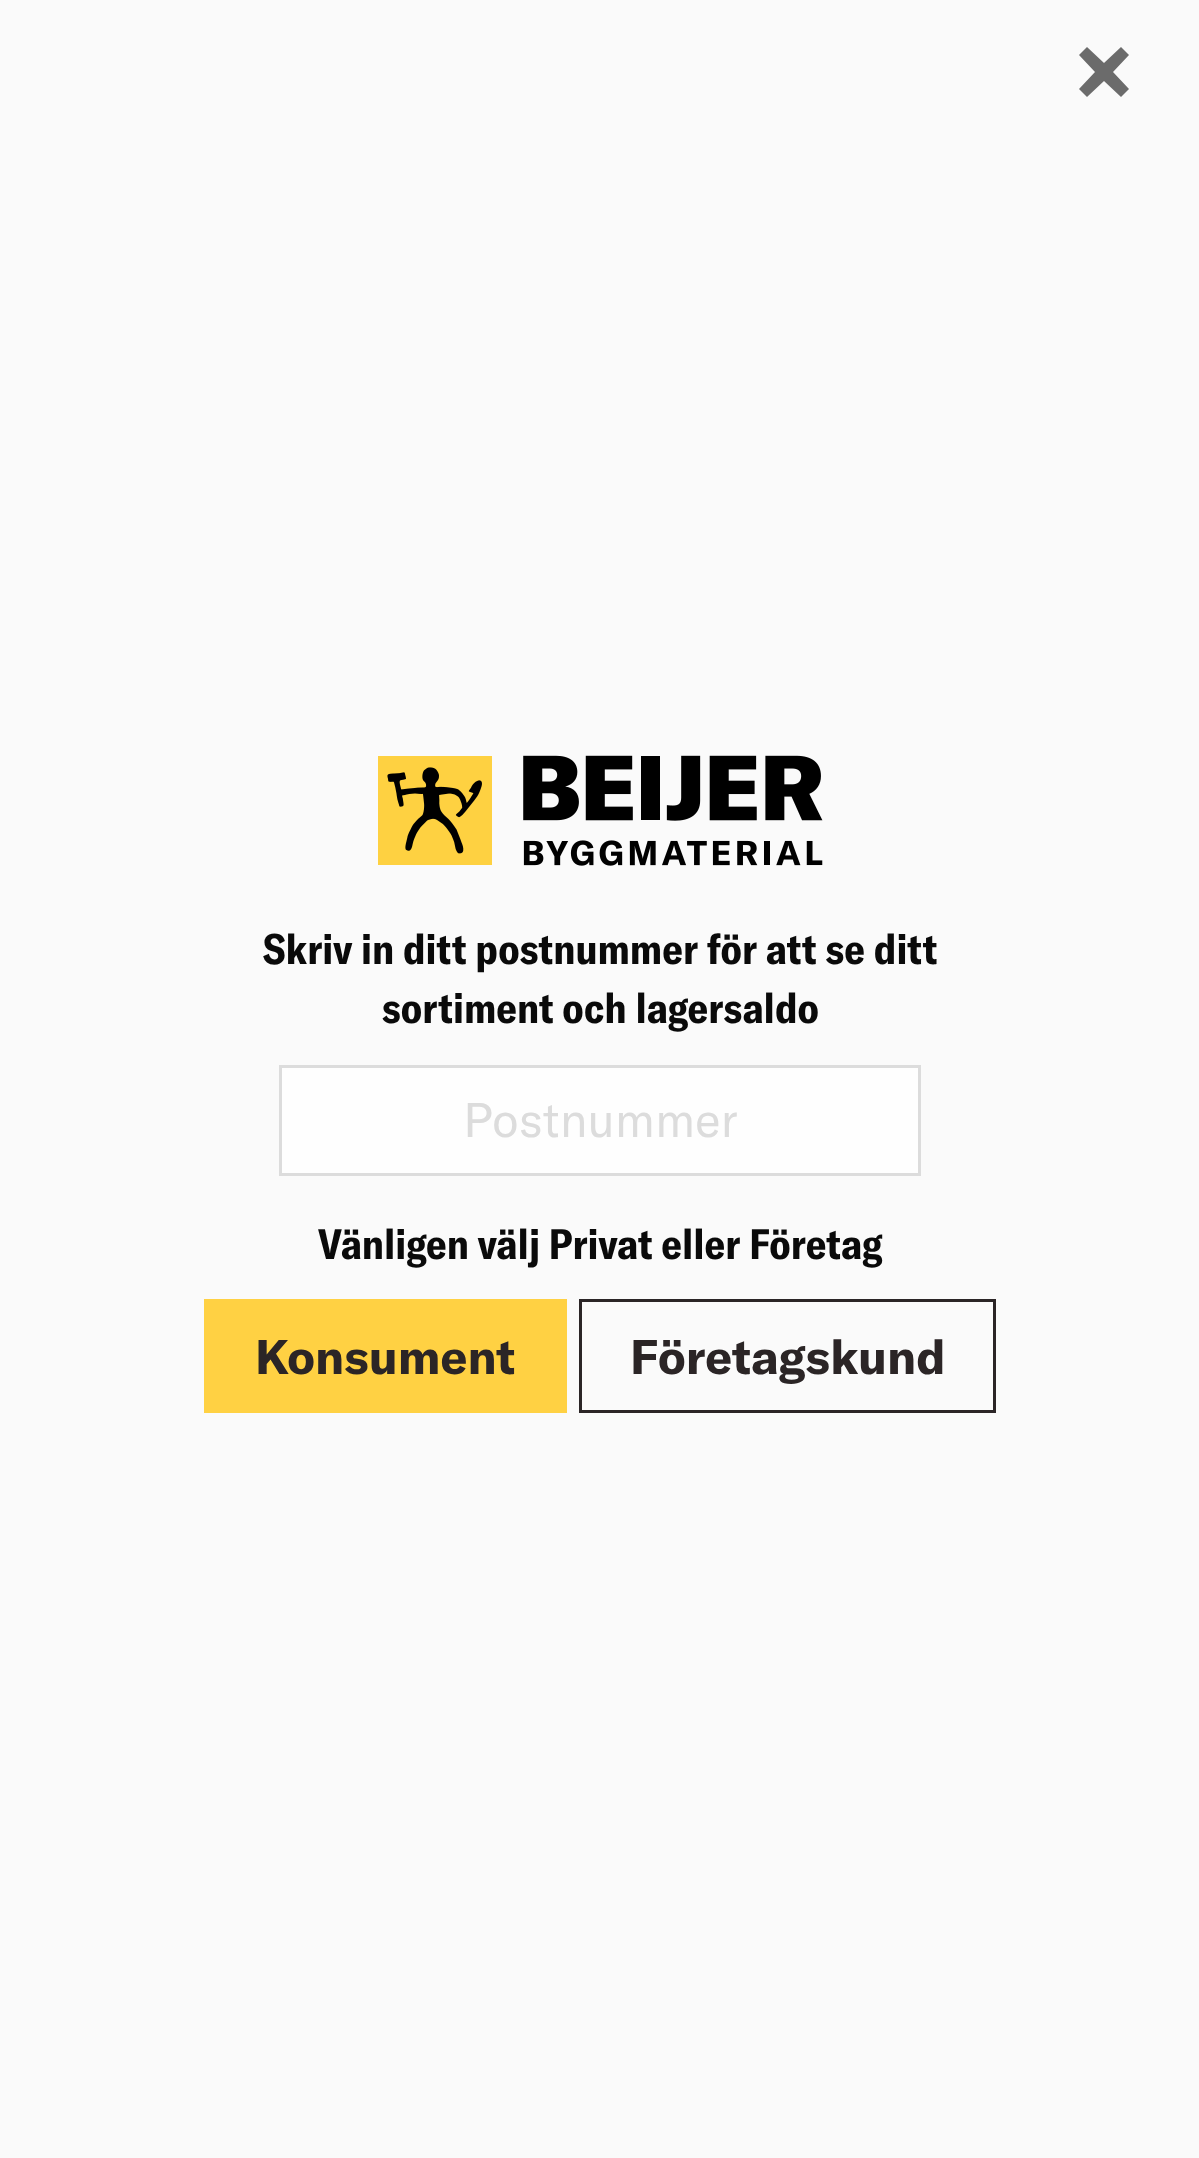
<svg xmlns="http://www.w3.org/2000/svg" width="1199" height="2158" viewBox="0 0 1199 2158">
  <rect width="100%" height="100%" fill="rgb(250,250,250)"/>
  <path d="M1129 89L1121 97L1104 81L1087 97L1079 89L1095 72L1079 55L1087 47L1104 63L1121 47L1129 55L1113 72Z" fill="rgb(107,107,107)"/>
  <image x="378" y="755" width="445" height="111" href="pic1.png"/>
  <g font-family="GT America" font-size="42" font-weight="bold" fill="rgb(10,10,10)">
    <text x="263" y="964">Skriv in ditt postnummer för att se ditt</text>
    <text x="382" y="1023">sortiment och lagersaldo</text>
  </g>
  <rect x="280.5" y="1066.5" width="639" height="108" fill="rgb(254,254,254)" stroke="rgb(220,220,220)" stroke-width="3"/>
  <text x="463" y="1137" font-family="GT America" font-size="48" fill="rgb(220,220,220)">Postnummer</text>
  <text x="318" y="1259" font-family="GT America" font-size="42" font-weight="bold" fill="rgb(10,10,10)">Vänligen välj Privat eller Företag</text>
  <rect x="204" y="1299" width="363" height="114" fill="rgb(255,209,67)"/>
  <text x="255" y="1374" font-family="'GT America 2'" font-size="48" font-weight="bold" fill="rgb(43,37,38)">Konsument</text>
  <rect x="580.5" y="1300.5" width="414" height="111" fill="none" stroke="rgb(43,37,38)" stroke-width="3"/>
  <text x="630" y="1374" font-family="'GT America 2'" font-size="48" font-weight="bold" fill="rgb(43,37,38)">Företagskund</text>
</svg>
